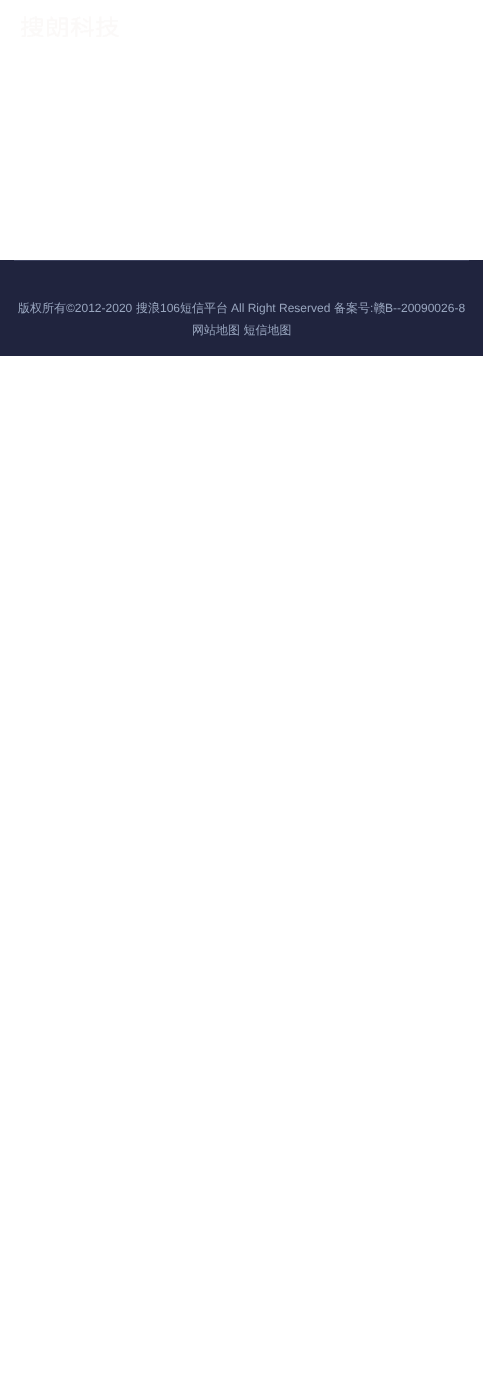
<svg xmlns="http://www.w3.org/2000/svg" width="483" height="1386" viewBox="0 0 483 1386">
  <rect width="100%" height="100%" fill="rgb(255,255,255)"/>
  <image x="21" y="16" width="98" height="21" href="pic1.png"/>
  <rect x="0" y="260" width="483" height="96" fill="rgb(32,36,62)"/>
  <rect x="14" y="260" width="455" height="1" fill="rgb(60,65,94)"/>
  <text x="18" y="312" font-family="WenQuanYi Zen Hei" font-size="12" font-weight="500" fill="rgb(153,166,191)">版权所有</text>
  <text x="66" y="312" font-family="Liberation Sans" font-size="12" fill="rgb(153,166,191)">©2012-2020</text>
  <text x="136" y="312" font-family="WenQuanYi Zen Hei" font-size="12" font-weight="500" fill="rgb(153,166,191)">搜浪</text>
  <text x="160" y="312" font-family="Liberation Sans" font-size="12" fill="rgb(153,166,191)">106</text>
  <text x="180" y="312" font-family="WenQuanYi Zen Hei" font-size="12" font-weight="500" fill="rgb(153,166,191)">短信平台</text>
  <text x="231" y="312" font-family="Liberation Sans" font-size="12" fill="rgb(153,166,191)">All Right Reserved</text>
  <text x="334" y="312" font-family="WenQuanYi Zen Hei" font-size="12" font-weight="500" fill="rgb(153,166,191)">备案号 赣</text>
  <g font-family="Liberation Sans" font-size="12" fill="rgb(153,166,191)">
    <text x="385" y="312">B--20090026-8</text>
    <text x="370" y="312">:</text>
  </g>
  <text x="192" y="334" font-family="WenQuanYi Zen Hei" font-size="12" font-weight="500" fill="rgb(153,166,191)">网站地图 短信地图</text>
</svg>
